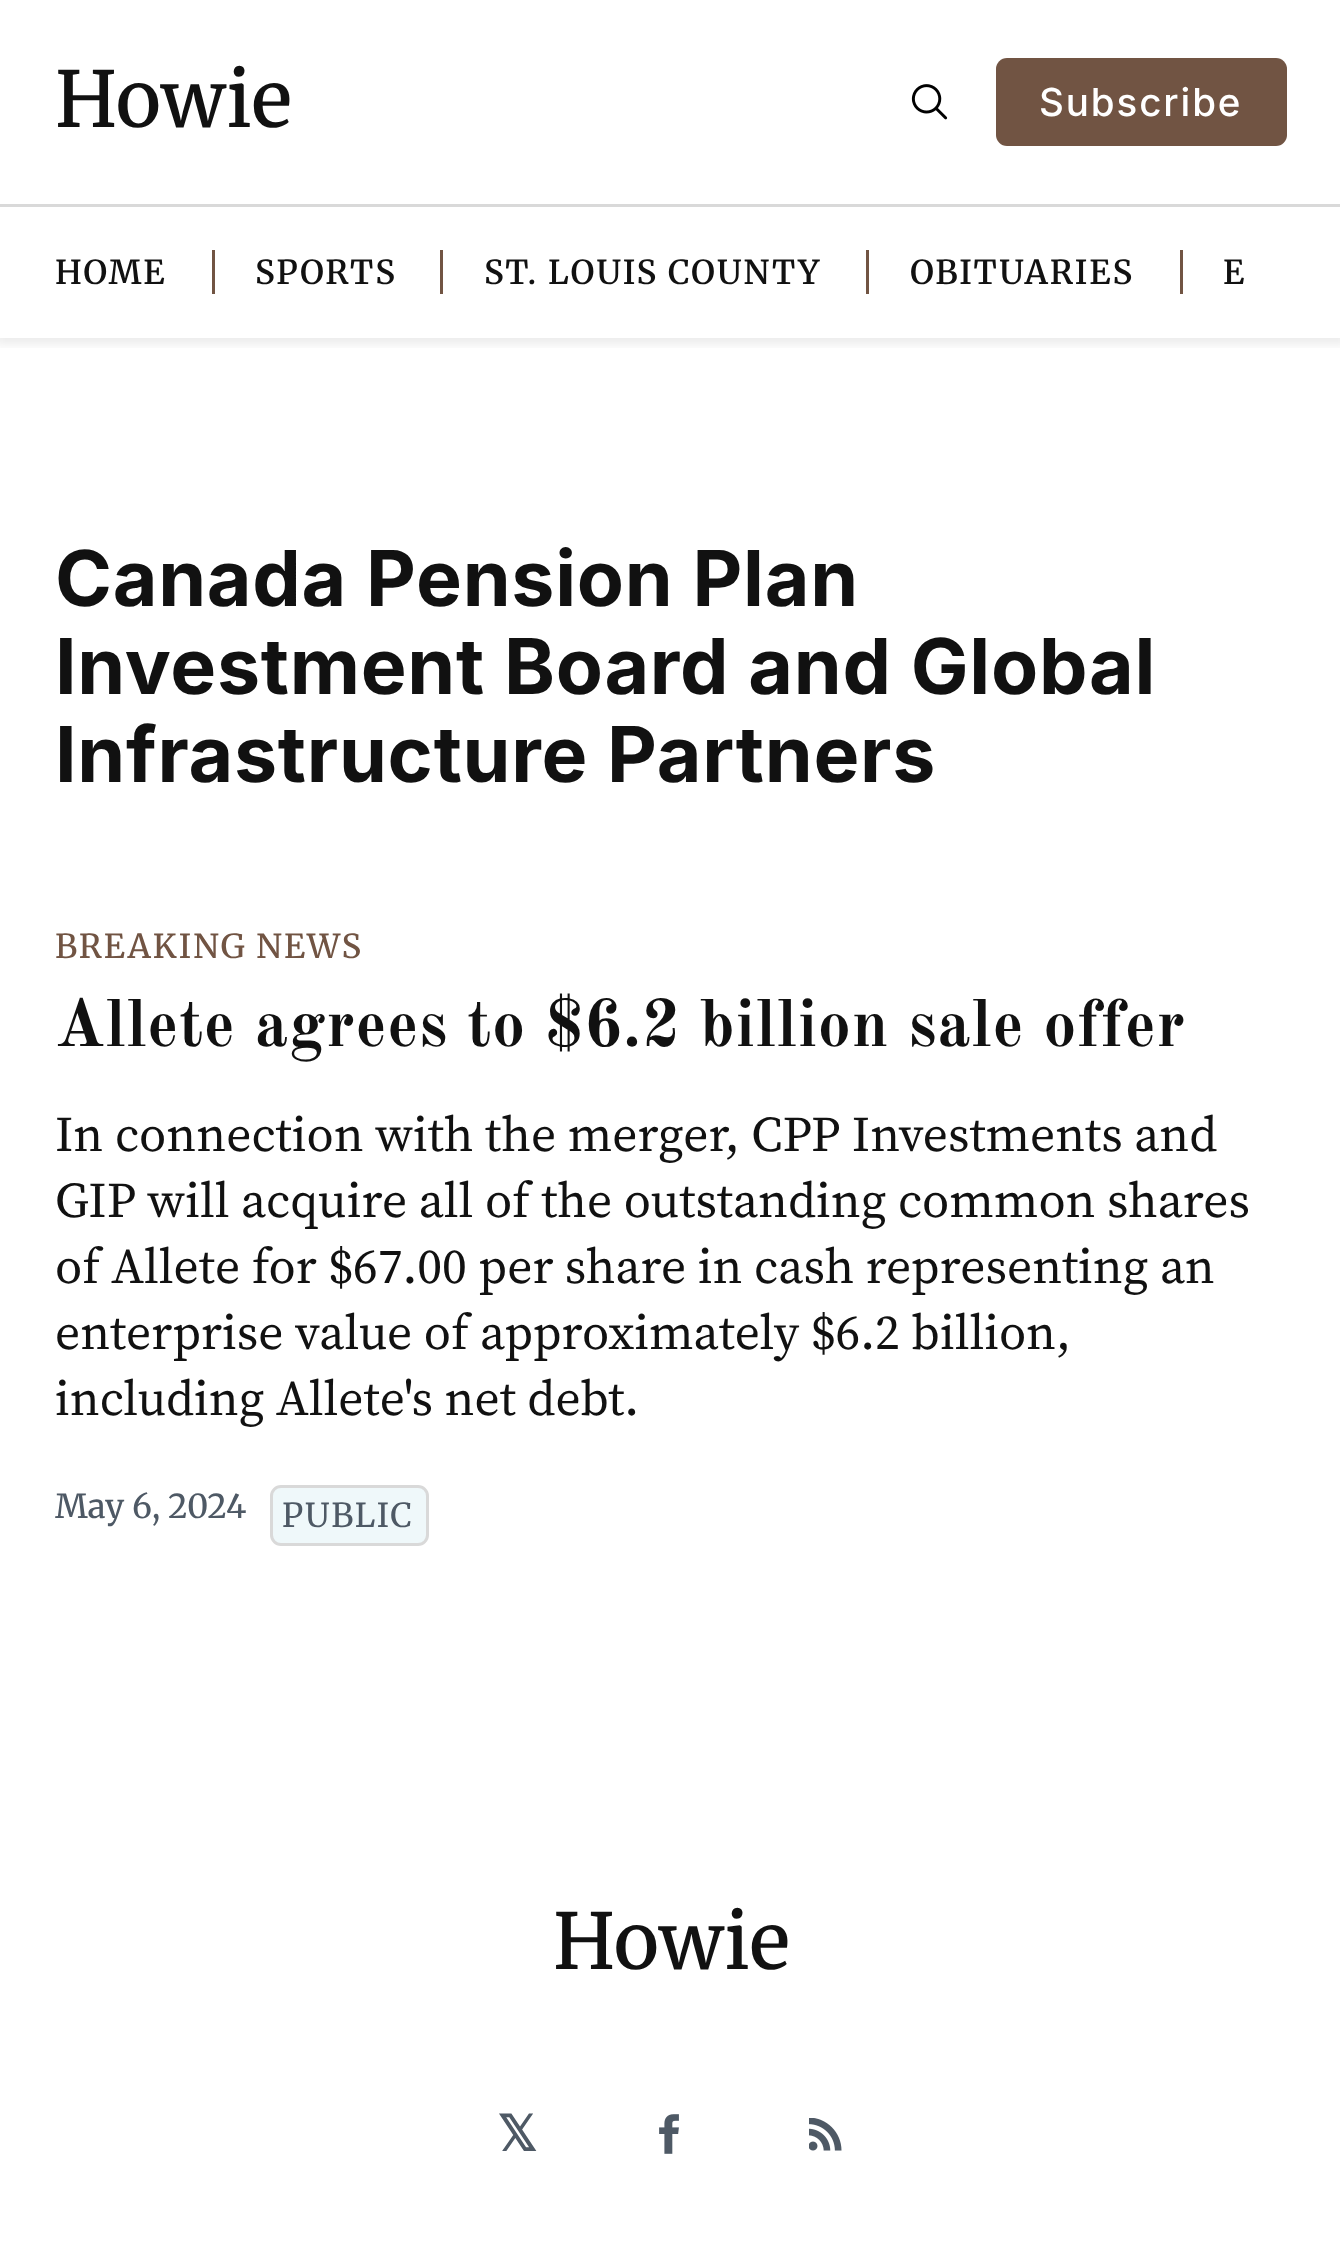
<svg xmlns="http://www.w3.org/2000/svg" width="1340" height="2268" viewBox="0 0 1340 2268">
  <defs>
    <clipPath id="clip1"><rect x="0" y="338" width="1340" height="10"/></clipPath>
  </defs>
  <rect width="100%" height="100%" fill="rgb(255,255,255)"/>
  <g clip-path="url(#clip1)">
    <rect x="-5" y="-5" width="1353" height="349" fill="rgba(0,0,0,0.08)" filter="blur(5.5px)"/>
  </g>
  <rect x="0" y="204" width="1340" height="3" fill="rgb(217,217,217)"/>
  <text x="55" y="127" font-family="Merriweather" font-size="77" font-weight="500" fill="rgb(17,17,17)">Howie</text>
  <image x="911" y="84" width="37" height="36" href="pic1.png"/>
  <rect x="996" y="58" width="291" height="88" rx="11" fill="rgb(113,84,67)"/>
  <text x="1039" y="116" font-family="Inter" font-size="38.5" font-weight="500" letter-spacing="1.9" fill="rgb(255,255,255)">Subscribe</text>
  <text x="55" y="284" font-family="Merriweather" font-size="33" font-weight="600" letter-spacing="1.9" fill="rgb(17,17,17)">HOME</text>
  <rect x="212" y="250" width="3" height="44" fill="rgb(113,84,67)"/>
  <text x="255" y="284" font-family="Merriweather" font-size="33" font-weight="600" letter-spacing="1.9" fill="rgb(17,17,17)">SPORTS</text>
  <rect x="440" y="250" width="3" height="44" fill="rgb(113,84,67)"/>
  <text x="484" y="284" font-family="Merriweather" font-size="33" font-weight="600" letter-spacing="1.9" fill="rgb(17,17,17)">ST. LOUIS COUNTY</text>
  <rect x="866" y="250" width="3" height="44" fill="rgb(113,84,67)"/>
  <text x="910" y="284" font-family="Merriweather" font-size="33" font-weight="600" letter-spacing="1.9" fill="rgb(17,17,17)">OBITUARIES</text>
  <rect x="1180" y="250" width="3" height="44" fill="rgb(113,84,67)"/>
  <text x="1223" y="284" font-family="Merriweather" font-size="33" font-weight="600" letter-spacing="1.9" fill="rgb(17,17,17)">E</text>
  <g font-family="Inter" font-size="77" font-weight="bold" letter-spacing="0.75" fill="rgb(17,17,17)">
    <text>
      <tspan x="55" y="606">Canada Pension Plan</tspan>
      <tspan x="55" y="694">Investment Board and Global</tspan>
      <tspan x="55" y="782">Infrastructure Partners</tspan>
    </text>
  </g>
  <text x="55" y="958" font-family="Merriweather" font-size="33" font-weight="500" letter-spacing="1.9" fill="rgb(113,84,67)">BREAKING NEWS</text>
  <text x="55" y="1046" font-family="Old Standard TT" font-size="66" font-weight="bold" letter-spacing="0.65" fill="rgb(17,17,17)">Allete agrees to $6.2 billion sale offer</text>
  <g font-family="'Source Serif 4'" font-size="49.5" fill="rgb(17,17,17)">
    <text>
      <tspan x="55" y="1151">In connection with the merger, CPP Investments and</tspan>
      <tspan x="55" y="1217">GIP will acquire all of the outstanding common shares</tspan>
      <tspan x="55" y="1283">of Allete for $67.00 per share in cash representing an</tspan>
      <tspan x="55" y="1349">enterprise value of approximately $6.2 billion,</tspan>
      <tspan x="55" y="1415">including Allete's net debt.</tspan>
    </text>
  </g>
  <text x="55" y="1518" font-family="Merriweather" font-size="33" font-weight="500" fill="rgb(78,89,101)">May 6, 2024</text>
  <rect x="271.5" y="1486.5" width="156" height="58" rx="9.5" fill="rgb(239,248,250)" stroke="rgb(217,217,217)" stroke-width="3"/>
  <text x="282" y="1527" font-family="Merriweather" font-size="33" letter-spacing="1.9" fill="rgb(78,89,101)">PUBLIC</text>
  <text x="553" y="1969" font-family="Merriweather" font-size="77" font-weight="500" fill="rgb(17,17,17)">Howie</text>
  <text x="497" y="2151" font-family="DejaVu Sans" font-size="49.5" font-weight="bold" fill="rgb(78,89,101)">𝕏</text>
  <image x="659" y="2114" width="20" height="40" href="pic2.png"/>
  <image x="809" y="2118" width="33" height="33" href="pic3.png"/>
</svg>
